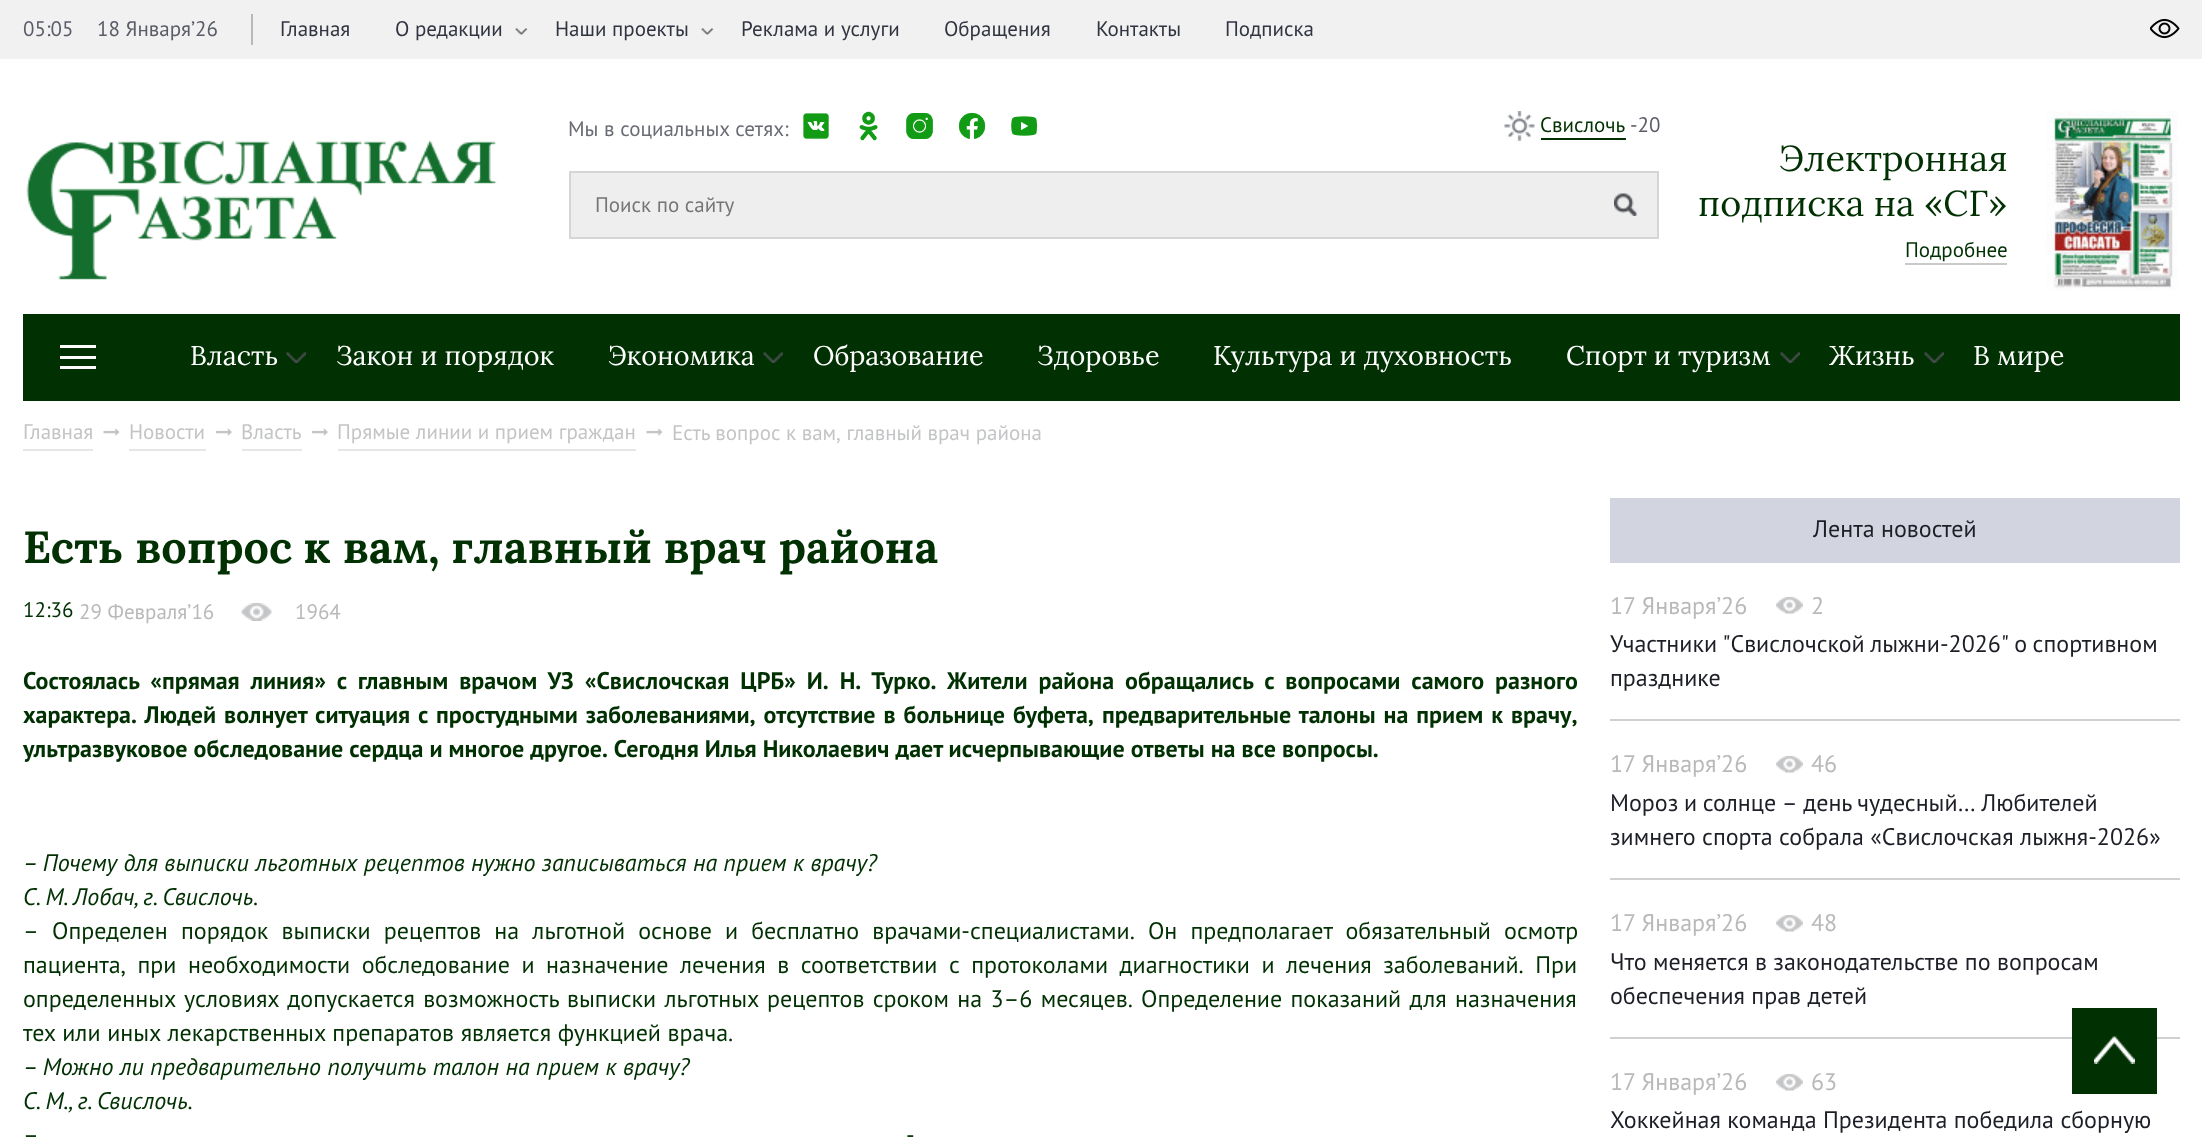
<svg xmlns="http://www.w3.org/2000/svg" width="2202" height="1138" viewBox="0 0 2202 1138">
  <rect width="100%" height="100%" fill="rgb(255,255,255)"/>
  <rect x="0" y="0" width="2202" height="59" fill="rgb(241,241,241)"/>
  <rect x="251" y="14" width="2" height="31" fill="rgb(183,184,188)"/>
  <g font-family="PT Sans" font-size="21" fill="rgb(90,93,103)">
    <text x="23" y="36">05:05</text>
    <text x="97" y="36">18 Января’26</text>
  </g>
  <g font-family="PT Sans" font-size="21" fill="rgb(49,52,65)">
    <text x="280" y="36">Главная</text>
    <text x="395" y="36">О редакции</text>
  </g>
  <image x="515" y="28" width="13" height="7" href="pic1.png"/>
  <text x="555" y="36" font-family="PT Sans" font-size="21" fill="rgb(49,52,65)">Наши проекты</text>
  <image x="701" y="28" width="13" height="7" href="pic1.png"/>
  <g font-family="PT Sans" font-size="21" fill="rgb(49,52,65)">
    <text x="741" y="36">Реклама и услуги</text>
    <text x="944" y="36">Обращения</text>
    <text x="1096" y="36">Контакты</text>
    <text x="1225" y="36">Подписка</text>
  </g>
  <image x="2150" y="18" width="30" height="21" href="pic2.png"/>
  <image x="26" y="140" width="471" height="140" href="pic3.png"/>
  <text x="568" y="136" font-family="PT Sans" font-size="21" fill="rgb(106,108,115)">Мы в социальных сетях:</text>
  <image x="803" y="113" width="26" height="26" href="pic4.png"/>
  <image x="859" y="111" width="19" height="30" href="pic5.png"/>
  <image x="906" y="113" width="27" height="26" href="pic6.png"/>
  <image x="959" y="113" width="27" height="26" href="pic7.png"/>
  <image x="1011" y="116" width="27" height="20" href="pic8.png"/>
  <image x="1504" y="111" width="31" height="30" href="pic9.png"/>
  <text x="1540" y="132" font-family="PT Sans" font-size="21" fill="rgb(1,48,3)">Свислочь</text>
  <rect x="1541" y="138" width="85" height="2" fill="rgb(1,48,3)"/>
  <text x="1630" y="132" font-family="PT Sans" font-size="21" fill="rgb(90,93,103)">-20</text>
  <rect x="570" y="172" width="1088" height="66" fill="rgb(238,238,238)" stroke="rgb(213,213,213)" stroke-width="2"/>
  <text x="595" y="212" font-family="PT Sans" font-size="21" fill="rgb(117,117,117)">Поиск по сайту</text>
  <image x="1614" y="193" width="23" height="23" href="pic10.png"/>
  <g font-family="Lora" font-size="36" fill="rgb(1,48,3)">
    <text x="1779" y="171">Электронная</text>
    <text x="1698" y="216">подписка на «СГ»</text>
  </g>
  <text x="1905" y="257" font-family="PT Sans" font-size="21" fill="rgb(1,48,3)">Подробнее</text>
  <rect x="1905" y="263" width="102" height="2" fill="rgb(202,202,202)"/>
  <image x="2046" y="111" width="132" height="180" href="pic11.png"/>
  <rect x="23" y="314" width="2157" height="87" fill="rgb(1,48,3)"/>
  <rect x="60" y="345" width="36" height="3" fill="rgb(255,255,255)"/>
  <rect x="60" y="356" width="36" height="3" fill="rgb(255,255,255)"/>
  <rect x="60" y="366" width="36" height="3" fill="rgb(255,255,255)"/>
  <text x="190" y="365" font-family="Lora" font-size="27" fill="rgb(255,255,255)">Власть</text>
  <image x="286" y="352" width="20" height="11" href="pic12.png"/>
  <g font-family="Lora" font-size="27" fill="rgb(255,255,255)">
    <text x="336" y="365">Закон и порядок</text>
    <text x="608" y="365">Экономика</text>
  </g>
  <image x="763" y="352" width="20" height="11" href="pic13.png"/>
  <g font-family="Lora" font-size="27" fill="rgb(255,255,255)">
    <text x="813" y="365">Образование</text>
    <text x="1037" y="365">Здоровье</text>
    <text x="1213" y="365">Культура и духовность</text>
    <text x="1566" y="365">Спорт и туризм</text>
  </g>
  <image x="1780" y="352" width="20" height="11" href="pic13.png"/>
  <text x="1829" y="365" font-family="Lora" font-size="27" fill="rgb(255,255,255)">Жизнь</text>
  <image x="1924" y="352" width="20" height="11" href="pic12.png"/>
  <text x="1973" y="365" font-family="Lora" font-size="27" fill="rgb(255,255,255)">В мире</text>
  <rect x="23" y="449" width="70" height="2" fill="rgb(230,230,230)"/>
  <text x="23" y="439" font-family="PT Sans" font-size="21" fill="rgb(195,196,197)">Главная</text>
  <image x="103" y="428" width="17" height="8" href="pic14.png"/>
  <rect x="129" y="449" width="77" height="2" fill="rgb(230,230,230)"/>
  <text x="129" y="439" font-family="PT Sans" font-size="21" fill="rgb(195,196,197)">Новости</text>
  <image x="216" y="428" width="16" height="8" href="pic15.png"/>
  <rect x="242" y="449" width="60" height="2" fill="rgb(230,230,230)"/>
  <text x="241" y="439" font-family="PT Sans" font-size="21" fill="rgb(195,196,197)">Власть</text>
  <image x="312" y="428" width="16" height="8" href="pic15.png"/>
  <rect x="338" y="449" width="298" height="2" fill="rgb(230,230,230)"/>
  <text x="337" y="439" font-family="PT Sans" font-size="21" fill="rgb(195,196,197)">Прямые линии и прием граждан</text>
  <image x="646" y="428" width="17" height="8" href="pic14.png"/>
  <text x="672" y="440" font-family="PT Sans" font-size="21" fill="rgb(195,196,197)">Есть вопрос к вам, главный врач района</text>
  <text x="23" y="563" font-family="Lora" font-size="45" font-weight="bold" fill="rgb(1,48,3)">Есть вопрос к вам, главный врач района</text>
  <text x="23" y="617" font-family="PT Sans" font-size="21" fill="rgb(1,48,3)">12:36</text>
  <text x="79" y="619" font-family="PT Sans" font-size="21" fill="rgb(185,185,187)">29 Февраля’16</text>
  <image x="241" y="603" width="31" height="18" href="pic16.png"/>
  <text x="295" y="619" font-family="PT Sans" font-size="21" fill="rgb(185,185,187)">1964</text>
  <g font-family="PT Sans" font-size="24" font-weight="bold" fill="rgb(1,48,3)">
    <text>
      <tspan x="23" y="689" word-spacing="4.9">Состоялась «прямая линия» с главным врачом УЗ «Свислочская ЦРБ» И. Н. Турко. Жители района обращались с вопросами самого разного</tspan>
      <tspan x="23" y="723" word-spacing="1.9">характера. Людей волнует ситуация с простудными заболеваниями, отсутствие в больнице буфета, предварительные талоны на прием к врачу,</tspan>
      <tspan x="23" y="757">ультразвуковое обследование сердца и многое другое. Сегодня Илья Николаевич дает исчерпывающие ответы на все вопросы.</tspan>
    </text>
  </g>
  <g font-family="PT Sans" font-size="24" font-style="italic" fill="rgb(1,48,3)">
    <text>
      <tspan x="23" y="871">– Почему для выписки льготных рецептов нужно записываться на прием к врачу?</tspan>
      <tspan x="23" y="905">С. М. Лобач, г. Свислочь.</tspan>
    </text>
  </g>
  <g font-family="PT Sans" font-size="24" fill="rgb(1,48,3)">
    <text>
      <tspan x="23" y="939" word-spacing="6.75">– Определен порядок выписки рецептов на льготной основе и бесплатно врачами-специалистами. Он предполагает обязательный осмотр</tspan>
      <tspan x="23" y="973" word-spacing="5.1">пациента, при необходимости обследование и назначение лечения в соответствии с протоколами диагностики и лечения заболеваний. При</tspan>
      <tspan x="23" y="1007" word-spacing="1.9">определенных условиях допускается возможность выписки льготных рецептов сроком на 3–6 месяцев. Определение показаний для назначения</tspan>
      <tspan x="23" y="1041" word-spacing="0.25">тех или иных лекарственных препаратов является функцией врача.</tspan>
    </text>
  </g>
  <g font-family="PT Sans" font-size="24" font-style="italic" fill="rgb(1,48,3)">
    <text>
      <tspan x="23" y="1075">– Можно ли предварительно получить талон на прием к врачу?</tspan>
      <tspan x="23" y="1109">С. М., г. Свислочь.</tspan>
    </text>
  </g>
  <g font-family="PT Sans" font-size="24" fill="rgb(1,48,3)">
    <text x="23" y="1143" word-spacing="2">–</text>
    <text x="906" y="1143" word-spacing="2">-</text>
  </g>
  <rect x="1610" y="498" width="570" height="65" fill="rgb(210,212,223)"/>
  <text x="1813" y="537" font-family="PT Sans" font-size="24" fill="rgb(29,31,39)">Лента новостей</text>
  <rect x="1610" y="719" width="570" height="2" fill="rgb(207,208,209)"/>
  <text x="1610" y="614" word-spacing="-1" font-family="PT Sans" font-size="24" fill="rgb(185,185,187)">17 Января’26</text>
  <image x="1776" y="597" width="27" height="17" href="pic17.png"/>
  <text x="1811" y="614" font-family="PT Sans" font-size="24" fill="rgb(185,185,187)">2</text>
  <g font-family="PT Sans" font-size="24" fill="rgb(29,31,39)">
    <text>
      <tspan x="1610" y="652" word-spacing="-1">Участники "Свислочской лыжни-2026" о спортивном</tspan>
      <tspan x="1610" y="686">празднике</tspan>
    </text>
  </g>
  <rect x="1610" y="878" width="570" height="2" fill="rgb(207,208,209)"/>
  <text x="1610" y="772" word-spacing="-1" font-family="PT Sans" font-size="24" fill="rgb(185,185,187)">17 Января’26</text>
  <image x="1776" y="756" width="27" height="17" href="pic17.png"/>
  <text x="1811" y="772" font-family="PT Sans" font-size="24" fill="rgb(185,185,187)">46</text>
  <g font-family="PT Sans" font-size="24" fill="rgb(29,31,39)">
    <text>
      <tspan x="1610" y="811" word-spacing="-0.75">Мороз и солнце – день чудесный… Любителей</tspan>
      <tspan x="1610" y="845">зимнего спорта собрала «Свислочская лыжня-2026»</tspan>
    </text>
  </g>
  <rect x="1610" y="1037" width="570" height="2" fill="rgb(207,208,209)"/>
  <text x="1610" y="931" word-spacing="-1" font-family="PT Sans" font-size="24" fill="rgb(185,185,187)">17 Января’26</text>
  <image x="1776" y="915" width="27" height="17" href="pic17.png"/>
  <text x="1811" y="931" font-family="PT Sans" font-size="24" fill="rgb(185,185,187)">48</text>
  <g font-family="PT Sans" font-size="24" fill="rgb(29,31,39)">
    <text>
      <tspan x="1610" y="970">Что меняется в законодательстве по вопросам</tspan>
      <tspan x="1610" y="1004">обеспечения прав детей</tspan>
    </text>
  </g>
  <text x="1610" y="1090" word-spacing="-1" font-family="PT Sans" font-size="24" fill="rgb(185,185,187)">17 Января’26</text>
  <image x="1776" y="1074" width="27" height="17" href="pic17.png"/>
  <text x="1811" y="1090" font-family="PT Sans" font-size="24" fill="rgb(185,185,187)">63</text>
  <text x="1610" y="1128" font-family="PT Sans" font-size="24" fill="rgb(29,31,39)">Хоккейная команда Президента победила сборную</text>
  <rect x="2072" y="1008" width="85" height="86" fill="rgb(1,48,3)"/>
  <image x="2094" y="1036" width="41" height="28" href="pic18.png"/>
</svg>
